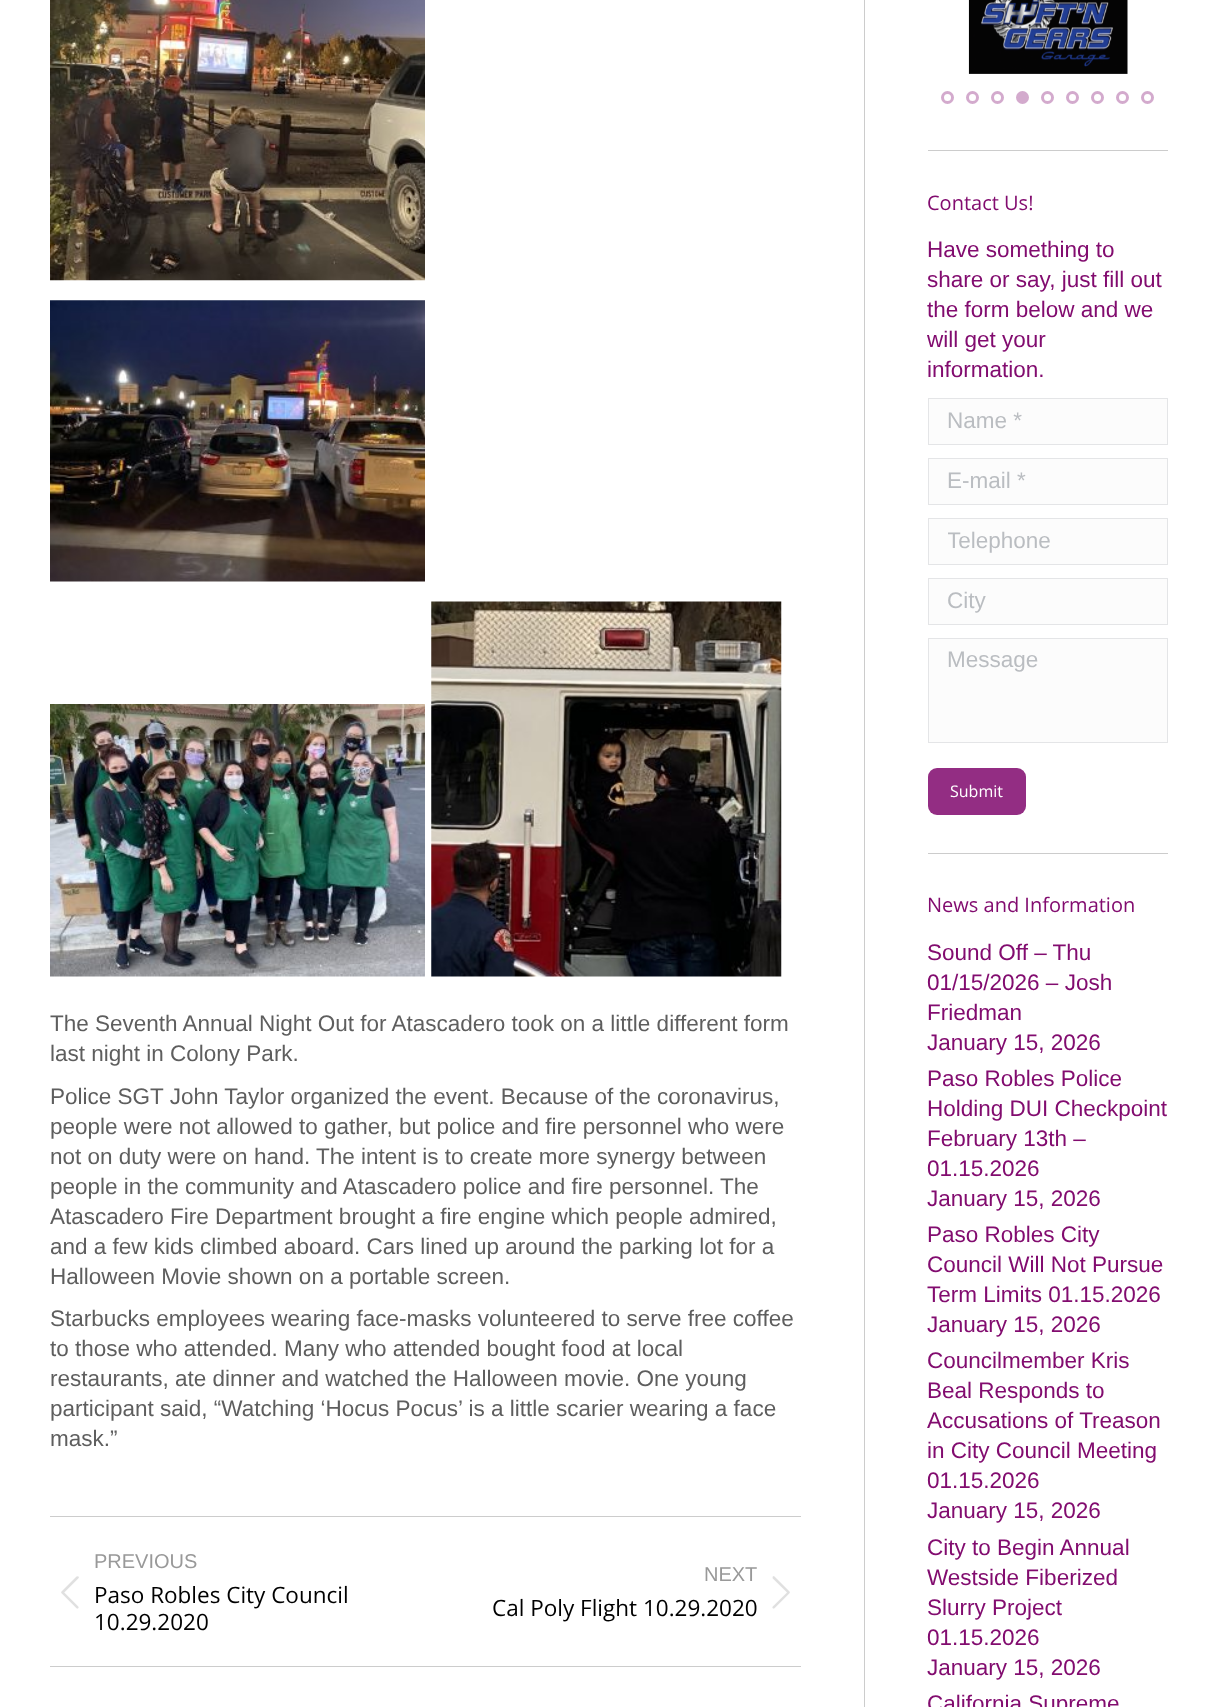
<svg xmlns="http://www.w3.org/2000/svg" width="1217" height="1707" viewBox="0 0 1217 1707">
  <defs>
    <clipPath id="clip1"><rect x="948" y="529" width="200" height="26"/></clipPath>
  </defs>
  <rect width="100%" height="100%" fill="rgb(255,255,255)"/>
  <image x="50" y="0" width="375" height="281" href="pic1.png"/>
  <image x="50" y="300" width="375" height="282" href="pic2.png"/>
  <image x="50" y="704" width="375" height="273" href="pic3.png"/>
  <image x="431" y="601" width="351" height="376" href="pic4.png"/>
  <g font-family="Liberation Sans" font-size="22.5" fill="rgb(94,94,94)">
    <text>
      <tspan x="50" y="1031">The Seventh Annual Night Out for Atascadero took on a little different form</tspan>
      <tspan x="50" y="1061">last night in Colony Park.</tspan>
      <tspan x="50" y="1104">Police SGT John Taylor organized the event. Because of the coronavirus,</tspan>
      <tspan x="50" y="1134">people were not allowed to gather, but police and fire personnel who were</tspan>
      <tspan x="50" y="1164">not on duty were on hand. The intent is to create more synergy between</tspan>
      <tspan x="50" y="1194">people in the community and Atascadero police and fire personnel. The</tspan>
      <tspan x="50" y="1224">Atascadero Fire Department brought a fire engine which people admired,</tspan>
      <tspan x="50" y="1254">and a few kids climbed aboard. Cars lined up around the parking lot for a</tspan>
      <tspan x="50" y="1284">Halloween Movie shown on a portable screen.</tspan>
      <tspan x="50" y="1326">Starbucks employees wearing face-masks volunteered to serve free coffee</tspan>
      <tspan x="50" y="1356">to those who attended. Many who attended bought food at local</tspan>
      <tspan x="50" y="1386">restaurants, ate dinner and watched the Halloween movie. One young</tspan>
      <tspan x="50" y="1416">participant said, “Watching ‘Hocus Pocus’ is a little scarier wearing a face</tspan>
      <tspan x="50" y="1446">mask.”</tspan>
    </text>
  </g>
  <rect x="50" y="1516" width="751" height="1" fill="rgb(204,204,204)"/>
  <rect x="50" y="1666" width="751" height="1" fill="rgb(204,204,204)"/>
  <text x="94" y="1568" font-family="Liberation Sans" font-size="20" fill="rgb(153,153,153)">PREVIOUS</text>
  <image x="61" y="1576" width="18" height="33" href="pic5.png"/>
  <g font-family="Open Sans" font-size="22.5" fill="rgb(0,0,0)">
    <text>
      <tspan x="94" y="1603">Paso Robles City Council</tspan>
      <tspan x="94" y="1630">10.29.2020</tspan>
    </text>
  </g>
  <text x="704" y="1581" font-family="Liberation Sans" font-size="20" fill="rgb(153,153,153)">NEXT</text>
  <text x="492" y="1616" font-family="Open Sans" font-size="22.5" fill="rgb(0,0,0)">Cal Poly Flight 10.29.2020</text>
  <image x="772" y="1576" width="18" height="33" href="pic6.png"/>
  <rect x="864" y="0" width="1" height="1707" fill="rgb(204,204,204)"/>
  <image x="968" y="0" width="160" height="74" href="pic7.png"/>
  <circle cx="947.5" cy="97.5" r="5" fill="none" stroke="rgb(211,170,205)" stroke-width="3"/>
  <circle cx="972.5" cy="97.5" r="5" fill="none" stroke="rgb(211,170,205)" stroke-width="3"/>
  <circle cx="997.5" cy="97.5" r="5" fill="none" stroke="rgb(211,170,205)" stroke-width="3"/>
  <circle cx="1022.5" cy="97.5" r="6.5" fill="rgb(211,170,205)"/>
  <circle cx="1047.5" cy="97.5" r="5" fill="none" stroke="rgb(211,170,205)" stroke-width="3"/>
  <circle cx="1072.5" cy="97.5" r="5" fill="none" stroke="rgb(211,170,205)" stroke-width="3"/>
  <circle cx="1097.5" cy="97.5" r="5" fill="none" stroke="rgb(211,170,205)" stroke-width="3"/>
  <circle cx="1122.5" cy="97.5" r="5" fill="none" stroke="rgb(211,170,205)" stroke-width="3"/>
  <circle cx="1147.5" cy="97.5" r="5" fill="none" stroke="rgb(211,170,205)" stroke-width="3"/>
  <rect x="928" y="150" width="240" height="1" fill="rgb(204,204,204)"/>
  <text x="927" y="210" font-family="Open Sans" font-size="20" fill="rgb(130,12,111)">Contact Us!</text>
  <g font-family="Liberation Sans" font-size="22.5" fill="rgb(130,12,111)">
    <text>
      <tspan x="927" y="257">Have something to</tspan>
      <tspan x="927" y="287">share or say, just fill out</tspan>
      <tspan x="927" y="317">the form below and we</tspan>
      <tspan x="927" y="347">will get your</tspan>
      <tspan x="927" y="377">information.</tspan>
    </text>
  </g>
  <rect x="928.5" y="398.5" width="239" height="46" fill="rgb(252,252,252)" stroke="rgb(228,229,231)"/>
  <text x="947" y="428" font-family="Liberation Sans" font-size="22.5" fill="rgb(186,189,193)">Name *</text>
  <rect x="928.5" y="458.5" width="239" height="46" fill="rgb(252,252,252)" stroke="rgb(228,229,231)"/>
  <text x="947" y="488" font-family="Liberation Sans" font-size="22.5" fill="rgb(186,189,193)">E-mail *</text>
  <rect x="928.5" y="518.5" width="239" height="46" fill="rgb(252,252,252)" stroke="rgb(228,229,231)"/>
  <g clip-path="url(#clip1)">
    <text x="947" y="548" font-family="Liberation Sans" font-size="22.5" fill="rgb(186,189,193)">Telephone</text>
  </g>
  <rect x="928.5" y="578.5" width="239" height="46" fill="rgb(252,252,252)" stroke="rgb(228,229,231)"/>
  <text x="947" y="608" font-family="Liberation Sans" font-size="22.5" fill="rgb(186,189,193)">City</text>
  <rect x="928.5" y="638.5" width="239" height="104" fill="rgb(252,252,252)" stroke="rgb(228,229,231)"/>
  <text x="947" y="667" font-family="Liberation Sans" font-size="22.5" fill="rgb(186,189,193)">Message</text>
  <rect x="928" y="768" width="98" height="47" rx="9" fill="rgb(147,45,131)"/>
  <text x="950" y="797" font-family="Open Sans" font-size="16" fill="rgb(255,255,255)">Submit</text>
  <rect x="928" y="853" width="240" height="1" fill="rgb(204,204,204)"/>
  <text x="927" y="912" font-family="Open Sans" font-size="20" fill="rgb(130,12,111)">News and Information</text>
  <g font-family="Liberation Sans" font-size="22.5" fill="rgb(130,12,111)">
    <text>
      <tspan x="927" y="960">Sound Off – Thu</tspan>
      <tspan x="927" y="990">01/15/2026 – Josh</tspan>
      <tspan x="927" y="1020">Friedman</tspan>
      <tspan x="927" y="1050">January 15, 2026</tspan>
      <tspan x="927" y="1086">Paso Robles Police</tspan>
      <tspan x="927" y="1116">Holding DUI Checkpoint</tspan>
      <tspan x="927" y="1146">February 13th –</tspan>
      <tspan x="927" y="1176">01.15.2026</tspan>
      <tspan x="927" y="1206">January 15, 2026</tspan>
      <tspan x="927" y="1242">Paso Robles City</tspan>
      <tspan x="927" y="1272">Council Will Not Pursue</tspan>
      <tspan x="927" y="1302">Term Limits 01.15.2026</tspan>
      <tspan x="927" y="1332">January 15, 2026</tspan>
      <tspan x="927" y="1368">Councilmember Kris</tspan>
      <tspan x="927" y="1398">Beal Responds to</tspan>
      <tspan x="927" y="1428">Accusations of Treason</tspan>
      <tspan x="927" y="1458">in City Council Meeting</tspan>
      <tspan x="927" y="1488">01.15.2026</tspan>
      <tspan x="927" y="1518">January 15, 2026</tspan>
      <tspan x="927" y="1555">City to Begin Annual</tspan>
      <tspan x="927" y="1585">Westside Fiberized</tspan>
      <tspan x="927" y="1615">Slurry Project</tspan>
      <tspan x="927" y="1645">01.15.2026</tspan>
      <tspan x="927" y="1675">January 15, 2026</tspan>
      <tspan x="927" y="1711">California Supreme</tspan>
    </text>
  </g>
</svg>
